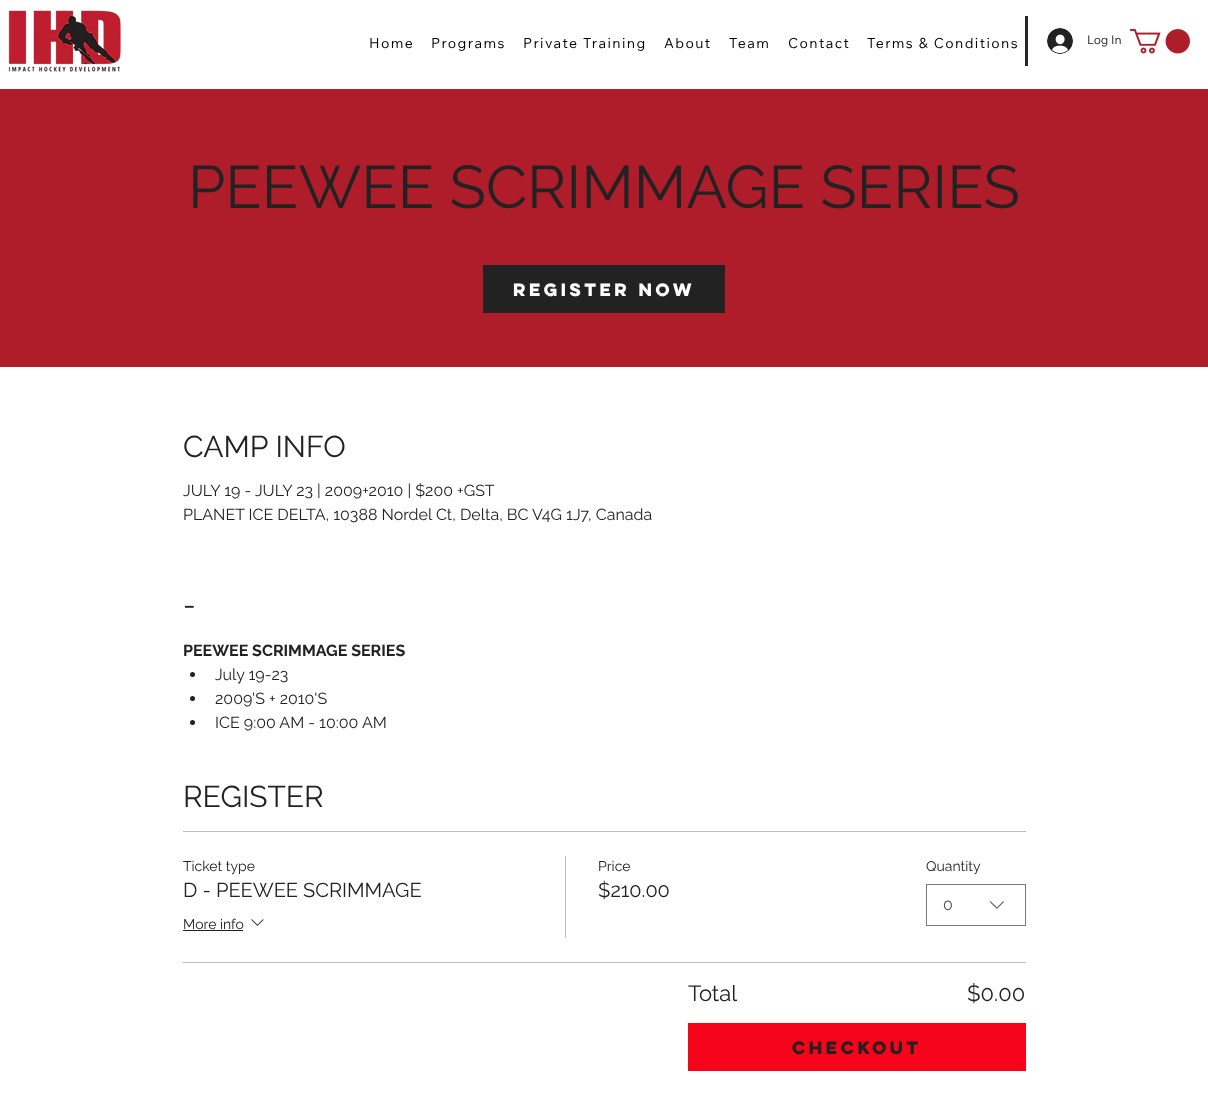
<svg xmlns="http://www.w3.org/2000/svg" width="1208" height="1110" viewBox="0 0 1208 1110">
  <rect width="100%" height="100%" fill="rgb(255,255,255)"/>
  <image x="8" y="10" width="113" height="62" href="pic1.png"/>
  <g font-family="Wix Madefor Text" font-size="14" letter-spacing="1.4" fill="rgb(0,0,0)">
    <text x="369" y="48">Home</text>
    <text x="431" y="48">Programs</text>
    <text x="523" y="48">Private Training</text>
    <text x="664" y="48">About</text>
    <text x="729" y="48">Team</text>
    <text x="788" y="48">Contact</text>
    <text x="867" y="48">Terms &amp; Conditions</text>
  </g>
  <rect x="1025" y="16" width="3" height="50" fill="rgb(40,38,38)"/>
  <image x="1047" y="28" width="26" height="26" href="pic2.png"/>
  <text x="1087" y="44" font-family="Wix Madefor Text" font-size="12" fill="rgb(34,34,34)">Log In</text>
  <image x="1130" y="29" width="60" height="25" href="pic3.png"/>
  <rect x="0" y="89" width="1208" height="278" fill="rgb(175,29,43)"/>
  <text x="188" y="208" font-family="Raleway" font-size="60" fill="rgb(34,34,34)">PEEWEE SCRIMMAGE SERIES</text>
  <rect x="483" y="265" width="242" height="48" fill="rgb(34,34,34)"/>
  <text x="513" y="296" font-family="'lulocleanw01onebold'" font-size="16" font-weight="bold" fill="rgb(255,255,255)">Register Now</text>
  <text x="183" y="457" font-family="Raleway" font-size="30" fill="rgb(34,34,34)">CAMP INFO</text>
  <g font-family="Raleway" font-size="16" fill="rgb(34,34,34)">
    <text>
      <tspan x="183" y="496">JULY 19 - JULY 23 | 2009+2010 | $200 +GST</tspan>
      <tspan x="183" y="520">PLANET ICE DELTA, 10388 Nordel Ct, Delta, BC V4G 1J7, Canada</tspan>
    </text>
  </g>
  <text x="183" y="615" font-family="Raleway" font-size="30" fill="rgb(34,34,34)">-</text>
  <text x="183" y="656" font-family="Raleway" font-size="16" font-weight="bold" fill="rgb(34,34,34)">PEEWEE SCRIMMAGE SERIES</text>
  <circle cx="192.5" cy="674.5" r="2.5" fill="rgb(34,34,34)"/>
  <text x="215" y="680" font-family="Raleway" font-size="16" fill="rgb(34,34,34)">July 19-23</text>
  <circle cx="192.5" cy="698.5" r="2.5" fill="rgb(34,34,34)"/>
  <text x="215" y="704" font-family="Raleway" font-size="16" fill="rgb(34,34,34)">2009'S + 2010'S</text>
  <circle cx="192.5" cy="722.5" r="2.5" fill="rgb(34,34,34)"/>
  <text x="215" y="728" font-family="Raleway" font-size="16" fill="rgb(34,34,34)">ICE 9:00 AM - 10:00 AM</text>
  <text x="183" y="807" font-family="Raleway" font-size="30" fill="rgb(34,34,34)">REGISTER</text>
  <rect x="183" y="831" width="843" height="1" fill="rgb(189,189,189)"/>
  <rect x="183" y="962" width="843" height="1" fill="rgb(189,189,189)"/>
  <text x="183" y="871" font-family="Raleway" font-size="14" fill="rgb(34,34,34)">Ticket type</text>
  <text x="183" y="897" font-family="Raleway" font-size="20" fill="rgb(34,34,34)">D - PEEWEE SCRIMMAGE</text>
  <text x="183" y="929" font-family="Raleway" font-size="14" fill="rgb(34,34,34)">More info</text>
  <rect x="183" y="930" width="60" height="1" fill="rgb(34,34,34)"/>
  <image x="251" y="919" width="13" height="7" href="pic4.png"/>
  <rect x="565" y="856" width="1" height="82" fill="rgb(189,189,189)"/>
  <text x="598" y="871" font-family="Raleway" font-size="14" fill="rgb(34,34,34)">Price</text>
  <text x="598" y="897" font-family="Raleway" font-size="20" fill="rgb(34,34,34)">$210.00</text>
  <text x="926" y="871" font-family="Raleway" font-size="14" fill="rgb(34,34,34)">Quantity</text>
  <rect x="926.5" y="884.5" width="99" height="41" fill="none" stroke="rgb(122,122,122)"/>
  <text x="943" y="910" font-family="Raleway" font-size="16" fill="rgb(78,78,78)">0</text>
  <image x="989" y="901" width="15" height="8" href="pic5.png"/>
  <g font-family="Raleway" font-size="22" fill="rgb(34,34,34)">
    <text x="688" y="1001">Total</text>
    <text x="967" y="1001">$0.00</text>
  </g>
  <rect x="688" y="1023" width="338" height="48" fill="rgb(246,4,25)"/>
  <text x="792" y="1054" font-family="'lulocleanw01onebold'" font-size="16" font-weight="bold" fill="rgb(34,34,34)">Checkout</text>
</svg>
